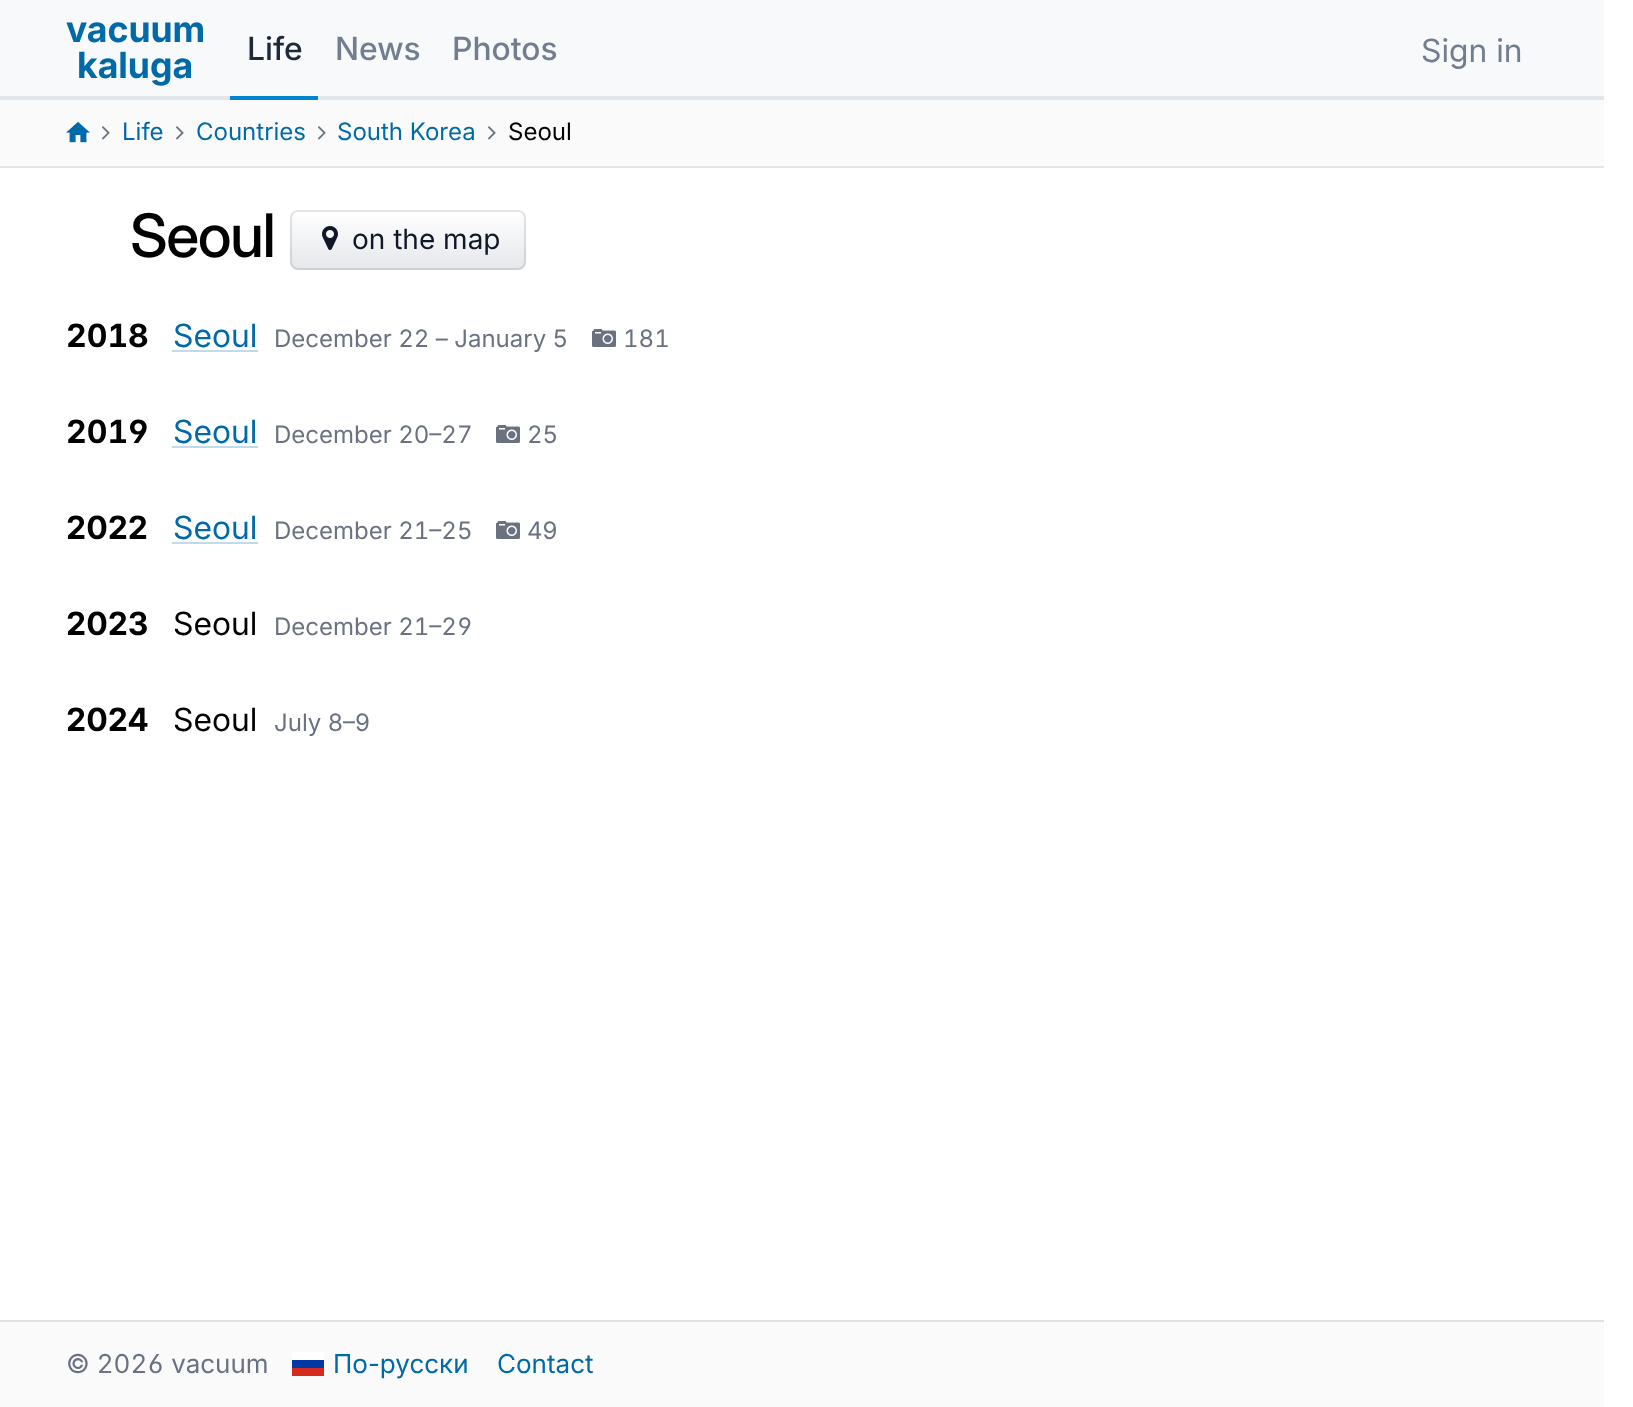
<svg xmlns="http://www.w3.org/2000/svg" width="1633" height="1407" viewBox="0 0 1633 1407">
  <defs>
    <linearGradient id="g1" gradientUnits="userSpaceOnUse" x1="408" y1="210" x2="408" y2="270"><stop offset="0" stop-color="rgb(255,255,255)"/><stop offset="1" stop-color="rgb(229,231,235)"/></linearGradient>
  </defs>
  <rect width="100%" height="100%" fill="rgb(255,255,255)"/>
  <rect x="0" y="0" width="1604" height="96" fill="rgb(248,249,250)"/>
  <rect x="0" y="96" width="1604" height="4" fill="rgb(227,230,232)"/>
  <g font-family="Inter" font-size="36" font-weight="bold" fill="rgb(0,105,168)">
    <text x="66" y="42">vacuum</text>
    <text x="77" y="78">kaluga</text>
  </g>
  <rect x="230" y="96" width="88" height="4" fill="rgb(0,132,209)"/>
  <text x="247" y="60" font-family="Inter" font-size="32" font-weight="500" fill="rgb(30,41,57)">Life</text>
  <g font-family="Inter" font-size="32" font-weight="500" fill="rgb(114,126,144)">
    <text x="335" y="60">News</text>
    <text x="452" y="60">Photos</text>
  </g>
  <text x="1421" y="62" font-family="Inter" font-size="32" fill="rgb(114,126,144)">Sign in</text>
  <rect x="0" y="100" width="1604" height="66" fill="rgb(250,250,250)"/>
  <rect x="0" y="166" width="1604" height="2" fill="rgb(227,230,232)"/>
  <image x="66" y="121" width="24" height="22" href="pic1.png"/>
  <image x="102" y="126" width="8" height="14" href="pic2.png"/>
  <text x="122" y="140" font-family="'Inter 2'" font-size="24" fill="rgb(0,105,168)">Life</text>
  <image x="176" y="126" width="8" height="14" href="pic2.png"/>
  <text x="196" y="140" font-family="'Inter 2'" font-size="24" fill="rgb(0,105,168)">Countries</text>
  <image x="318" y="126" width="8" height="14" href="pic2.png"/>
  <text x="337" y="140" font-family="'Inter 2'" font-size="24" fill="rgb(0,105,168)">South Korea</text>
  <image x="488" y="126" width="8" height="14" href="pic2.png"/>
  <text x="508" y="140" font-family="'Inter 2'" font-size="24" fill="rgb(0,0,0)">Seoul</text>
  <text x="130" y="257" font-family="'Inter 2'" font-size="60" font-weight="500" letter-spacing="-1.5" fill="rgb(0,0,0)">Seoul</text>
  <rect x="290" y="210" width="236" height="60" rx="8" fill="url(#g1)"/>
  <rect x="291" y="211" width="234" height="58" rx="7" fill="none" stroke="rgba(0,0,0,0.1)" stroke-width="2"/>
  <image x="322" y="226" width="16" height="24" href="pic3.png"/>
  <text x="352" y="249" font-family="'Inter 2'" font-size="28" fill="rgb(16,24,40)">on the map</text>
  <text x="66" y="347" font-family="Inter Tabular" font-size="32" font-weight="bold" fill="rgb(0,0,0)">2018</text>
  <text x="173" y="347" font-family="Inter" font-size="32" fill="rgb(0,105,168)">Seoul</text>
  <rect x="172" y="350" width="86" height="2" fill="rgb(191,218,233)"/>
  <text x="274" y="347" font-family="Inter Tabular" font-size="24" fill="rgb(106,114,130)">December 22 – January 5</text>
  <image x="592" y="329" width="24" height="18" href="pic4.png"/>
  <text x="623" y="347" font-family="Inter Tabular" font-size="24" fill="rgb(106,114,130)">181</text>
  <text x="66" y="443" font-family="Inter Tabular" font-size="32" font-weight="bold" fill="rgb(0,0,0)">2019</text>
  <text x="173" y="443" font-family="Inter" font-size="32" fill="rgb(0,105,168)">Seoul</text>
  <rect x="172" y="446" width="86" height="2" fill="rgb(191,218,233)"/>
  <text x="274" y="443" font-family="Inter Tabular" font-size="24" fill="rgb(106,114,130)">December 20–27</text>
  <image x="496" y="425" width="24" height="18" href="pic4.png"/>
  <text x="527" y="443" font-family="Inter Tabular" font-size="24" fill="rgb(106,114,130)">25</text>
  <text x="66" y="539" font-family="'Inter 2'" font-size="32" font-weight="bold" fill="rgb(0,0,0)">2022</text>
  <text x="173" y="539" font-family="Inter" font-size="32" fill="rgb(0,105,168)">Seoul</text>
  <rect x="172" y="542" width="86" height="2" fill="rgb(191,218,233)"/>
  <text x="274" y="539" font-family="Inter Tabular" font-size="24" fill="rgb(106,114,130)">December 21–25</text>
  <image x="496" y="521" width="24" height="18" href="pic4.png"/>
  <text x="527" y="539" font-family="'Inter 2'" font-size="24" fill="rgb(106,114,130)">49</text>
  <text x="66" y="635" font-family="'Inter 2'" font-size="32" font-weight="bold" fill="rgb(0,0,0)">2023</text>
  <text x="173" y="635" font-family="Inter" font-size="32" fill="rgb(0,0,0)">Seoul</text>
  <text x="274" y="635" font-family="Inter Tabular" font-size="24" fill="rgb(106,114,130)">December 21–29</text>
  <text x="66" y="731" font-family="'Inter 2'" font-size="32" font-weight="bold" fill="rgb(0,0,0)">2024</text>
  <text x="173" y="731" font-family="Inter" font-size="32" fill="rgb(0,0,0)">Seoul</text>
  <text x="274" y="731" font-family="'Inter 2'" font-size="24" fill="rgb(106,114,130)">July 8–9</text>
  <rect x="0" y="1322" width="1604" height="85" fill="rgb(250,250,250)"/>
  <rect x="0" y="1320" width="1604" height="2" fill="rgb(222,226,230)"/>
  <text x="66" y="1373" font-family="Inter Tabular" font-size="26" fill="rgb(106,114,130)">© 2026 vacuum</text>
  <rect x="292" y="1352" width="32" height="8" fill="rgb(255,255,255)"/>
  <rect x="292" y="1360" width="32" height="8" fill="rgb(0,57,166)"/>
  <rect x="292" y="1368" width="32" height="8" fill="rgb(213,43,30)"/>
  <g font-family="'Inter 2'" font-size="26" fill="rgb(0,105,168)">
    <text x="333" y="1373">По-русски</text>
    <text x="497" y="1373">Contact</text>
  </g>
</svg>
